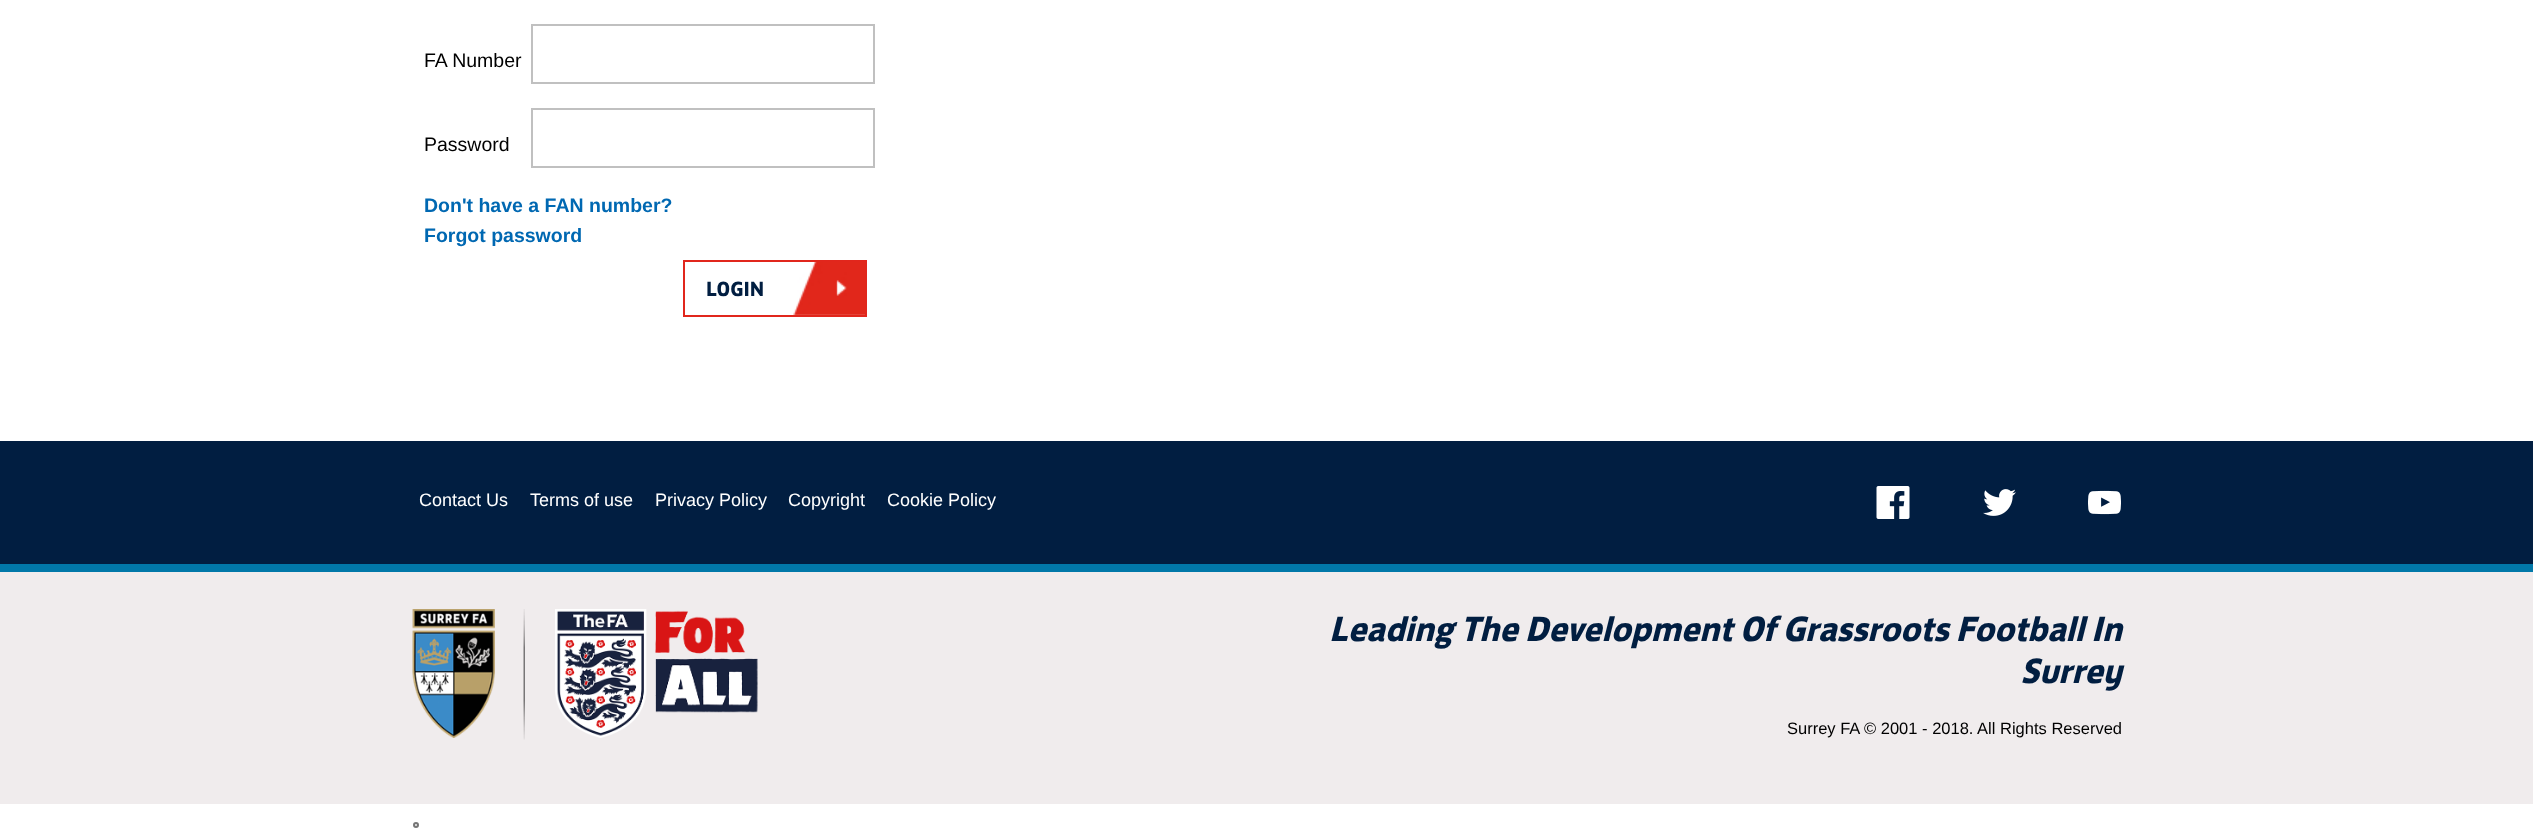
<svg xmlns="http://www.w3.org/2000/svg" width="2533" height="830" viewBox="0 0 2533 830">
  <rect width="100%" height="100%" fill="rgb(255,255,255)"/>
  <text x="424" y="67" font-family="Liberation Sans" font-size="19.5" fill="rgb(0,0,0)">FA Number</text>
  <rect x="532" y="25" width="342" height="58" fill="none" stroke="rgb(192,192,192)" stroke-width="2"/>
  <text x="424" y="151" font-family="Liberation Sans" font-size="19.5" fill="rgb(0,0,0)">Password</text>
  <rect x="532" y="109" width="342" height="58" fill="none" stroke="rgb(192,192,192)" stroke-width="2"/>
  <g font-family="Liberation Sans" font-size="19.5" font-weight="bold" fill="rgb(0,104,178)">
    <text>
      <tspan x="424" y="212">Don't have a FAN number?</tspan>
      <tspan x="424" y="242">Forgot password</tspan>
    </text>
  </g>
  <image x="793" y="262" width="72" height="53" href="pic1.png"/>
  <rect x="684" y="261" width="182" height="55" fill="none" stroke="rgb(225,38,28)" stroke-width="2"/>
  <text x="706" y="296" font-family="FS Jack" font-size="21" font-weight="bold" fill="rgb(1,30,65)">LOGIN</text>
  <rect x="0" y="441" width="2533" height="123" fill="rgb(1,30,65)"/>
  <rect x="0" y="564" width="2533" height="8" fill="rgb(1,120,169)"/>
  <g font-family="Liberation Sans" font-size="18" fill="rgb(255,255,255)">
    <text x="419" y="506">Contact Us</text>
    <text x="530" y="506">Terms of use</text>
    <text x="655" y="506">Privacy Policy</text>
    <text x="788" y="506">Copyright</text>
    <text x="887" y="506">Cookie Policy</text>
  </g>
  <image x="1876" y="486" width="34" height="33" href="pic2.png"/>
  <image x="1983" y="489" width="33" height="27" href="pic3.png"/>
  <image x="2088" y="490" width="33" height="25" href="pic4.png"/>
  <rect x="0" y="572" width="2533" height="232" fill="rgb(240,236,237)"/>
  <image x="523" y="609" width="2" height="131" href="pic5.png"/>
  <image x="412" y="609" width="83" height="129" href="pic6.png"/>
  <image x="555" y="609" width="203" height="129" href="pic7.png"/>
  <g font-family="FS Jack" font-size="36" font-weight="bold" font-style="italic" fill="rgb(1,30,65)">
    <text x="1329" y="641">Leading The Development Of Grassroots Football In</text>
    <text x="2020" y="683">Surrey</text>
  </g>
  <text x="1787" y="734" font-family="Liberation Sans" font-size="16.5" fill="rgb(0,0,0)">Surrey FA © 2001 - 2018. All Rights Reserved</text>
  <circle cx="416" cy="825" r="2" fill="rgb(239,239,239)" stroke="rgb(118,118,118)" stroke-width="2"/>
</svg>
